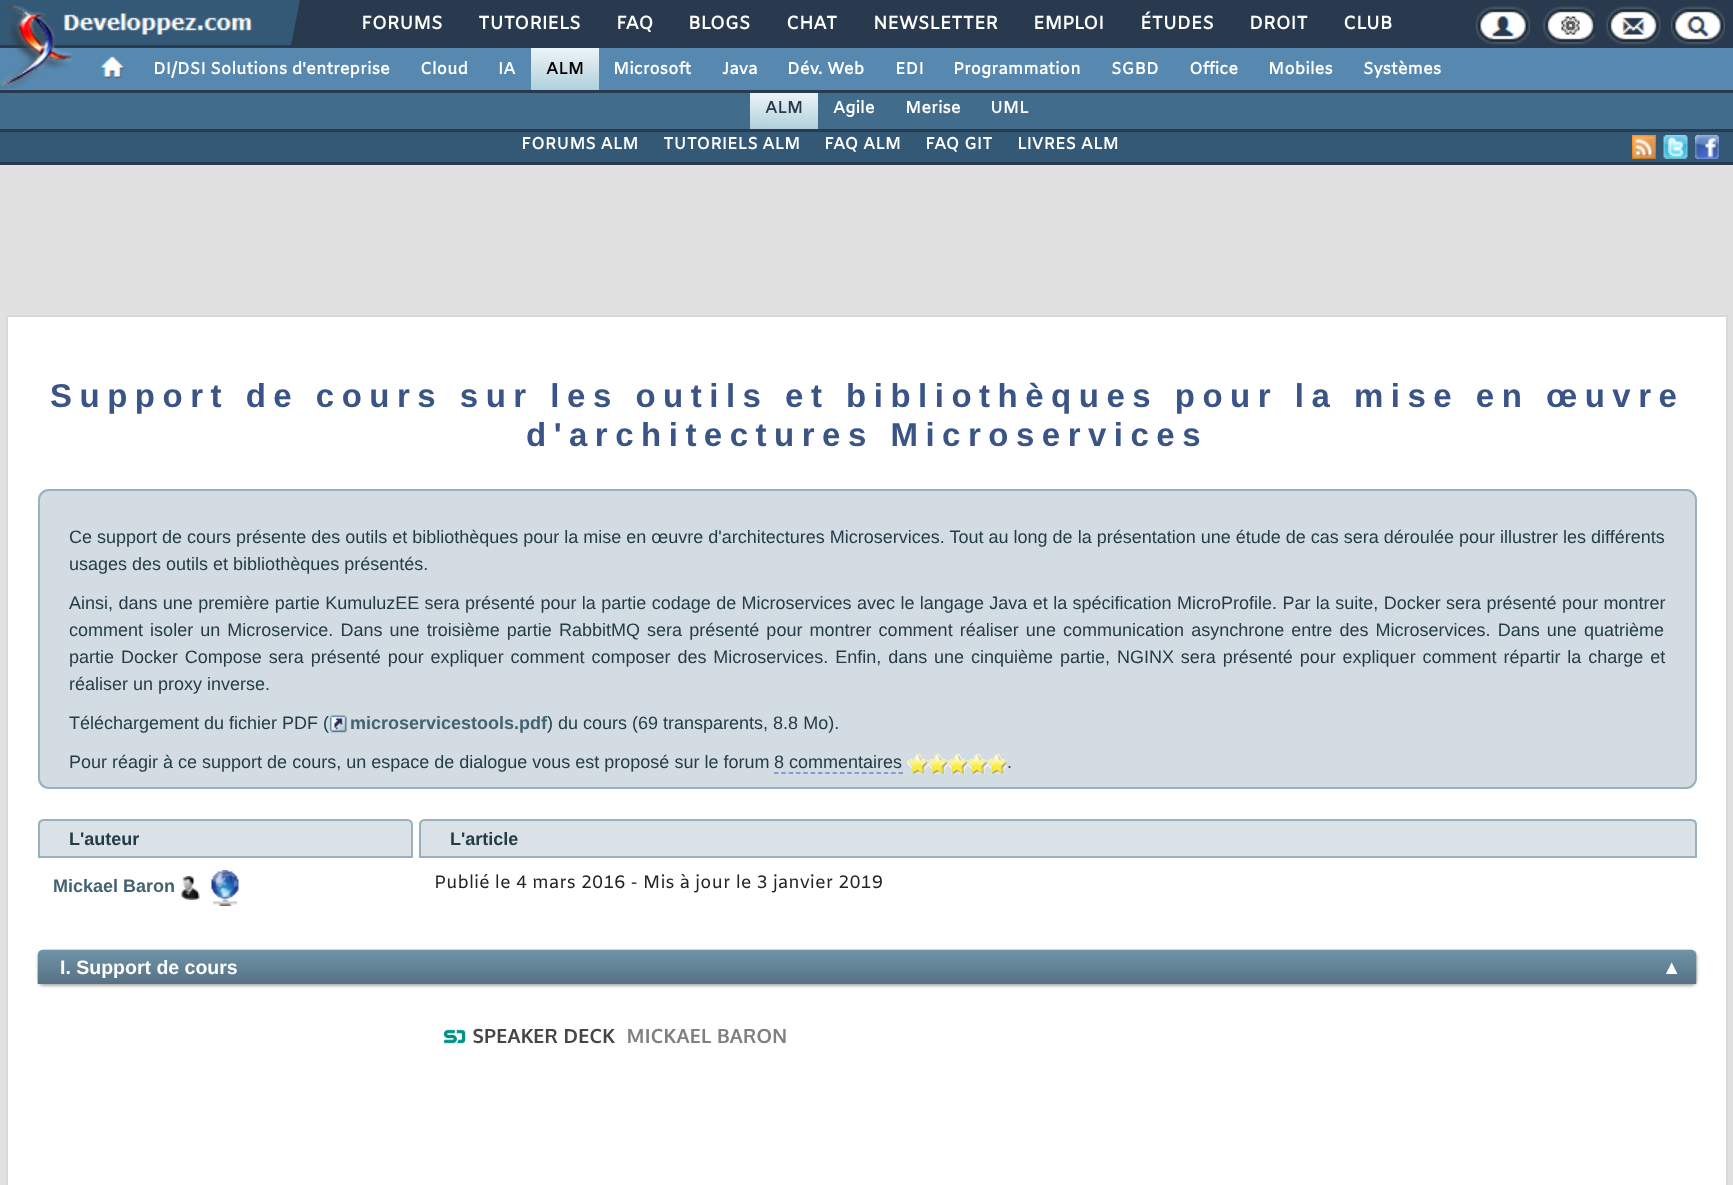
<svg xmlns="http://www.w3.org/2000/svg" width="1733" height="1185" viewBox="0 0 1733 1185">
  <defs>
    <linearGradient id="g1" gradientUnits="userSpaceOnUse" x1="565" y1="48" x2="565" y2="90"><stop offset="0" stop-color="rgb(234,245,248)"/><stop offset="0.37" stop-color="rgb(216,230,236)"/><stop offset="1" stop-color="rgb(174,209,221)"/></linearGradient>
    <linearGradient id="g2" gradientUnits="userSpaceOnUse" x1="784" y1="93" x2="784" y2="129"><stop offset="0" stop-color="rgb(234,245,248)"/><stop offset="0.37" stop-color="rgb(216,230,236)"/><stop offset="1" stop-color="rgb(174,209,221)"/></linearGradient>
  </defs>
  <rect width="100%" height="100%" fill="rgb(41,58,78)"/>
  <rect x="0" y="0" width="300" height="45" fill="rgb(52,89,118)"/>
  <image x="63" y="13" width="190" height="22" href="pic2.png"/>
  <rect x="0" y="48" width="1733" height="42" fill="rgb(87,137,176)"/>
  <image x="0" y="6" width="72" height="83" href="pic1.png"/>
  <path d="M300 45H291L300 0Z" fill="rgb(41,58,78)"/>
  <g font-family="Amiko" font-size="18.25" font-weight="bold" letter-spacing="-0.25" fill="rgb(255,255,255)">
    <text x="361" y="29">FORUMS</text>
    <text x="478" y="29">TUTORIELS</text>
    <text x="616" y="29">FAQ</text>
    <text x="688" y="29">BLOGS</text>
    <text x="786" y="29">CHAT</text>
    <text x="873" y="29">NEWSLETTER</text>
    <text x="1033" y="29">EMPLOI</text>
    <text x="1140" y="29">ÉTUDES</text>
    <text x="1249" y="29">DROIT</text>
    <text x="1343" y="29">CLUB</text>
  </g>
  <image x="1476" y="6" width="54" height="39" href="pic3.png"/>
  <image x="1542" y="6" width="53" height="39" href="pic4.png"/>
  <image x="1606" y="6" width="55" height="39" href="pic5.png"/>
  <image x="1671" y="6" width="54" height="39" href="pic6.png"/>
  <image x="100" y="56" width="25" height="23" href="pic7.png"/>
  <g font-family="Amiko" font-size="16.5" font-weight="bold" fill="rgb(255,255,255)">
    <text x="153" y="74">DI/DSI Solutions d'entreprise</text>
    <text x="420" y="74">Cloud</text>
    <text x="498" y="74">IA</text>
  </g>
  <rect x="531" y="48" width="68" height="42" fill="url(#g1)"/>
  <text x="546" y="74" font-family="Amiko" font-size="16.5" font-weight="bold" fill="rgb(0,0,0)">ALM</text>
  <g font-family="Amiko" font-size="16.5" font-weight="bold" fill="rgb(255,255,255)">
    <text x="613" y="74">Microsoft</text>
    <text x="722" y="74">Java</text>
    <text x="787" y="74">Dév. Web</text>
    <text x="895" y="74">EDI</text>
    <text x="953" y="74">Programmation</text>
    <text x="1111" y="74">SGBD</text>
    <text x="1189" y="74">Office</text>
    <text x="1268" y="74">Mobiles</text>
    <text x="1363" y="74">Systèmes</text>
  </g>
  <rect x="0" y="93" width="1733" height="36" fill="rgb(66,108,140)"/>
  <rect x="750" y="93" width="68" height="36" fill="url(#g2)"/>
  <text x="765" y="113" font-family="Amiko" font-size="16.5" font-weight="bold" fill="rgb(41,58,78)">ALM</text>
  <g font-family="Amiko" font-size="16.5" font-weight="bold" fill="rgb(255,255,255)">
    <text x="833" y="113">Agile</text>
    <text x="905" y="113">Merise</text>
    <text x="990" y="113">UML</text>
  </g>
  <rect x="0" y="132" width="1733" height="30" fill="rgb(52,89,118)"/>
  <g font-family="Amiko" font-size="16.5" font-weight="bold" fill="rgb(255,255,255)">
    <text x="521" y="149">FORUMS ALM</text>
    <text x="663" y="149">TUTORIELS ALM</text>
    <text x="824" y="149">FAQ ALM</text>
    <text x="925" y="149">FAQ GIT</text>
    <text x="1017" y="149">LIVRES ALM</text>
  </g>
  <image x="1632" y="135" width="24" height="24" href="pic8.png"/>
  <image x="1663" y="135" width="25" height="24" href="pic9.png"/>
  <image x="1695" y="135" width="24" height="24" href="pic10.png"/>
  <rect x="0" y="165" width="1733" height="1020" fill="rgb(225,225,226)"/>
  <rect x="7" y="316" width="1720" height="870" fill="rgb(255,255,255)" stroke="rgb(215,217,219)" stroke-width="2"/>
  <g font-family="Liberation Sans" font-size="33" font-weight="bold" letter-spacing="7.5" fill="rgb(58,84,134)">
    <text x="50" y="407">Support de cours sur les outils et bibliothèques pour la mise en œuvre</text>
    <text x="526" y="446">d'architectures Microservices</text>
  </g>
  <rect x="38" y="489" width="1659" height="300" rx="11" fill="rgb(226,232,236)"/>
  <image x="37" y="489" width="1659" height="300" href="pic11.png"/>
  <rect x="39" y="490" width="1657" height="298" rx="10" fill="none" stroke="rgb(155,177,188)" stroke-width="2"/>
  <g font-family="Liberation Sans" font-size="18" fill="rgb(36,60,71)">
    <text>
      <tspan x="69" y="543">Ce support de cours présente des outils et bibliothèques pour la mise en œuvre d'architectures Microservices. Tout au long de la présentation une étude de cas sera déroulée pour illustrer les différents</tspan>
      <tspan x="69" y="570">usages des outils et bibliothèques présentés.</tspan>
    </text>
    <text>
      <tspan x="69" y="609" word-spacing="0.4">Ainsi, dans une première partie KumuluzEE sera présenté pour la partie codage de Microservices avec le langage Java et la spécification MicroProfile. Par la suite, Docker sera présenté pour montrer</tspan>
      <tspan x="69" y="636" word-spacing="2.1">comment isoler un Microservice. Dans une troisième partie RabbitMQ sera présenté pour montrer comment réaliser une communication asynchrone entre des Microservices. Dans une quatrième</tspan>
      <tspan x="69" y="663" word-spacing="1.9">partie Docker Compose sera présenté pour expliquer comment composer des Microservices. Enfin, dans une cinquième partie, NGINX sera présenté pour expliquer comment répartir la charge et</tspan>
      <tspan x="69" y="690">réaliser un proxy inverse.</tspan>
    </text>
    <text x="69" y="729">Téléchargement du fichier PDF (</text>
  </g>
  <image x="329" y="715" width="18" height="18" href="pic12.png"/>
  <text x="350" y="729" font-family="Liberation Sans" font-size="18" font-weight="bold" fill="rgb(68,99,114)">microservicestools.pdf</text>
  <g font-family="Liberation Sans" font-size="18" fill="rgb(36,60,71)">
    <text x="547" y="729">) du cours (69 transparents, 8.8 Mo).</text>
    <text x="69" y="768">Pour réagir à ce support de cours, un espace de dialogue vous est proposé sur le forum</text>
    <text x="774" y="768">8 commentaires</text>
  </g>
  <path d="M774 773H903" fill="none" stroke="rgb(99,137,216)" stroke-width="1.5" stroke-dasharray="4.5 2.82"/>
  <image x="907" y="754" width="100" height="20" href="pic13.png"/>
  <text x="1007" y="768" font-family="Liberation Sans" font-size="18" fill="rgb(36,60,71)">.</text>
  <path d="M44 819H407C410.5 819 413 821.5 413 825V858H38V825C38 821.5 40.5 819 44 819Z" fill="rgb(235,239,242)"/>
  <image x="37" y="820" width="376" height="38" href="pic14.png"/>
  <path d="M44 820H407C410 820 412 822 412 825V857H39V825C39 822 41 820 44 820Z" fill="none" stroke="rgb(155,177,188)" stroke-width="2"/>
  <text x="69" y="845" font-family="Liberation Sans" font-size="18" font-weight="bold" fill="rgb(36,60,71)">L'auteur</text>
  <text x="53" y="892" font-family="Liberation Sans" font-size="18" font-weight="bold" fill="rgb(68,99,114)">Mickael Baron</text>
  <image x="181" y="876" width="19" height="24" href="pic15.png"/>
  <image x="211" y="870" width="28" height="36" href="pic16.png"/>
  <path d="M425 819H1691C1694.5 819 1697 821.5 1697 825V858H419V825C419 821.5 421.5 819 425 819Z" fill="rgb(235,239,242)"/>
  <image x="418" y="820" width="1279" height="38" href="pic17.png"/>
  <path d="M425 820H1691C1694 820 1696 822 1696 825V857H420V825C420 822 422 820 425 820Z" fill="none" stroke="rgb(155,177,188)" stroke-width="2"/>
  <text x="450" y="845" font-family="Liberation Sans" font-size="18" font-weight="bold" fill="rgb(36,60,71)">L'article</text>
  <text x="434" y="888" font-family="Amiko" font-size="18" fill="rgb(33,37,41)">Publié le 4 mars 2016 - Mis à jour le 3 janvier 2019</text>
  <rect x="38" y="951" width="1659" height="35" rx="6" fill="rgb(171,172,173)" filter="blur(1.5px)"/>
  <image x="37" y="949" width="1660" height="35" href="pic18.png"/>
  <g font-family="Liberation Sans" font-size="19.5" font-weight="bold" fill="rgb(255,255,255)">
    <text x="60" y="974">I. Support de cours</text>
    <text x="1662" y="974">▲</text>
  </g>
  <image x="443" y="1028" width="343" height="16" href="pic19.png"/>
</svg>
